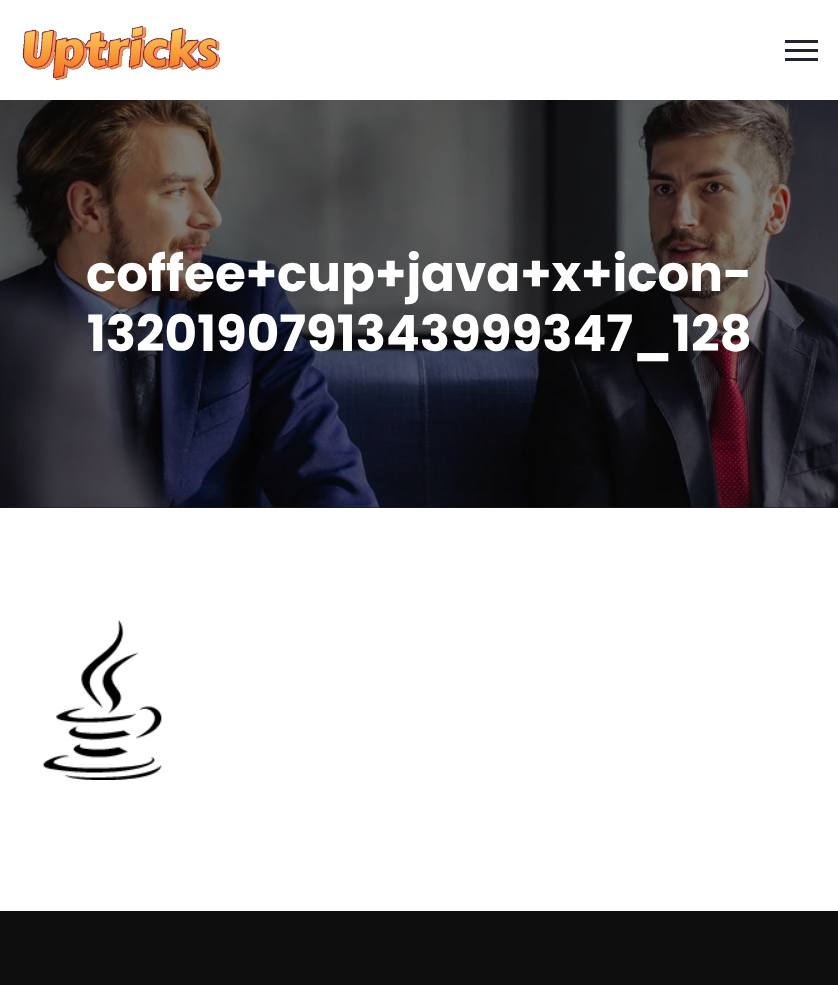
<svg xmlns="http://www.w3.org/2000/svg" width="838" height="985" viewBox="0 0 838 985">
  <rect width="100%" height="100%" fill="rgb(255,255,255)"/>
  <image x="22" y="25" width="198" height="55" href="pic1.png"/>
  <rect x="785" y="40" width="33" height="3" fill="rgb(31,34,51)"/>
  <rect x="785" y="49" width="33" height="3" fill="rgb(31,34,51)"/>
  <rect x="785" y="58" width="33" height="3" fill="rgb(31,34,51)"/>
  <rect x="0" y="507" width="838" height="1" fill="rgb(26,26,26)"/>
  <image x="0" y="100" width="838" height="408" href="pic2.png"/>
  <g font-family="Poppins" font-size="50" font-weight="bold" fill="rgb(255,255,255)">
    <text x="86" y="291">coffee+cup+java+x+icon-</text>
    <text x="87" y="351">1320190791343999347_128</text>
  </g>
  <image x="42" y="620" width="120" height="160" href="pic3.png"/>
  <rect x="0" y="911" width="838" height="74" fill="rgb(14,14,14)"/>
</svg>
